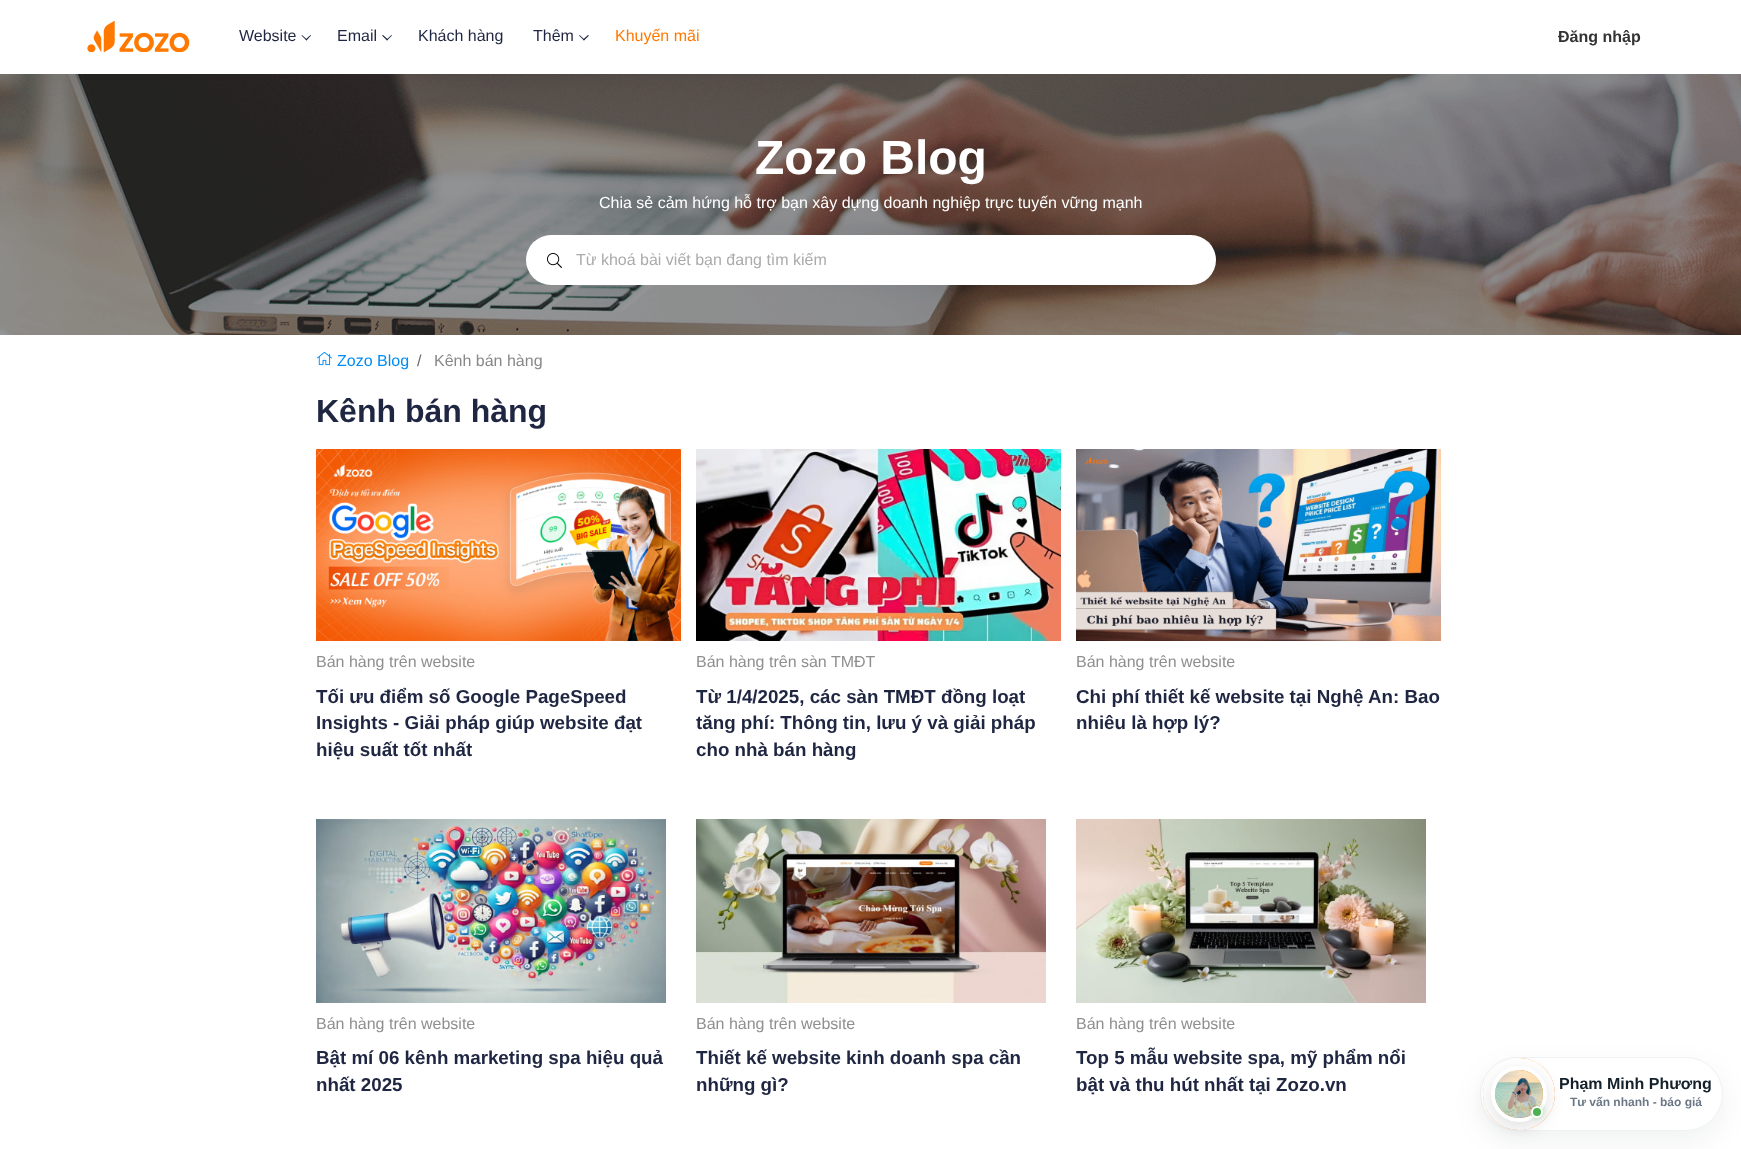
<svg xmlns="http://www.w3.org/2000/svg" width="1741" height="1149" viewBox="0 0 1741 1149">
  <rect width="100%" height="100%" fill="rgb(255,255,255)"/>
  <image x="87" y="21" width="103" height="31" href="pic1.png"/>
  <text x="239" y="41" font-family="Liberation Sans" font-size="16" fill="rgb(31,38,66)">Website</text>
  <path d="M310.5 35L311 35.5L306.5 40.5L305.5 39.5Z" fill="rgb(31,38,66)"/>
  <path d="M302 35L307 39.5L306.5 40.5L301.5 35.5Z" fill="rgb(31,38,66)"/>
  <text x="337" y="41" font-family="Liberation Sans" font-size="16" fill="rgb(31,38,66)">Email</text>
  <path d="M391.5 35L392 35.5L387 40.5L386.5 39.5Z" fill="rgb(31,38,66)"/>
  <path d="M383 35L388 39.5L387 40.5L382 35.5Z" fill="rgb(31,38,66)"/>
  <g font-family="Liberation Sans" font-size="16" fill="rgb(31,38,66)">
    <text x="418" y="41">Khách hàng</text>
    <text x="533" y="41">Thêm</text>
  </g>
  <path d="M588 35L589 35.5L584 40.5L583 39.5Z" fill="rgb(31,38,66)"/>
  <path d="M579.5 35L584.5 39.5L584 40.5L579 35.5Z" fill="rgb(31,38,66)"/>
  <text x="615" y="41" font-family="Liberation Sans" font-size="16" fill="rgb(255,120,0)">Khuyến mãi</text>
  <text x="1558" y="42" font-family="Liberation Sans" font-size="16" font-weight="bold" fill="rgb(51,51,51)">Đăng nhập</text>
  <image x="0" y="74" width="1741" height="261" href="pic2.png"/>
  <text x="755" y="174" font-family="Liberation Sans" font-size="48" font-weight="bold" fill="rgb(255,255,255)">Zozo Blog</text>
  <text x="599" y="208" font-family="Liberation Sans" font-size="16" fill="rgb(255,255,255)">Chia sẻ cảm hứng hỗ trợ bạn xây dựng doanh nghiệp trực tuyến vững mạnh</text>
  <rect x="526" y="235" width="690" height="50" rx="25" fill="rgb(255,255,255)"/>
  <image x="547" y="253" width="15" height="15" href="pic3.png"/>
  <text x="576" y="265" font-family="Liberation Sans" font-size="16" fill="rgb(171,171,171)">Từ khoá bài viết bạn đang tìm kiếm</text>
  <image x="317" y="352" width="15" height="14" href="pic4.png"/>
  <text x="337" y="366" font-family="Liberation Sans" font-size="16" fill="rgb(0,140,242)">Zozo Blog</text>
  <text x="417" y="366" font-family="Liberation Sans" font-size="16" fill="rgb(99,108,114)">/</text>
  <text x="434" y="366" font-family="Liberation Sans" font-size="16" fill="rgb(136,136,136)">Kênh bán hàng</text>
  <text x="316" y="422" font-family="Liberation Sans" font-size="32" font-weight="bold" fill="rgb(31,38,66)">Kênh bán hàng</text>
  <image x="316" y="449" width="365" height="192" href="pic5.png"/>
  <text x="316" y="667" font-family="Liberation Sans" font-size="16" fill="rgb(143,143,143)">Bán hàng trên website</text>
  <g font-family="Liberation Sans" font-size="18.75" font-weight="bold" fill="rgb(31,38,66)">
    <text>
      <tspan x="316" y="703">Tối ưu điểm số Google PageSpeed</tspan>
      <tspan x="316" y="729">Insights - Giải pháp giúp website đạt</tspan>
      <tspan x="316" y="756">hiệu suất tốt nhất</tspan>
    </text>
  </g>
  <image x="696" y="449" width="365" height="192" href="pic6.png"/>
  <text x="696" y="667" font-family="Liberation Sans" font-size="16" fill="rgb(143,143,143)">Bán hàng trên sàn TMĐT</text>
  <g font-family="Liberation Sans" font-size="18.75" font-weight="bold" fill="rgb(31,38,66)">
    <text>
      <tspan x="696" y="703">Từ 1/4/2025, các sàn TMĐT đồng loạt</tspan>
      <tspan x="696" y="729">tăng phí: Thông tin, lưu ý và giải pháp</tspan>
      <tspan x="696" y="756">cho nhà bán hàng</tspan>
    </text>
  </g>
  <image x="1076" y="449" width="365" height="192" href="pic7.png"/>
  <text x="1076" y="667" font-family="Liberation Sans" font-size="16" fill="rgb(143,143,143)">Bán hàng trên website</text>
  <g font-family="Liberation Sans" font-size="18.75" font-weight="bold" fill="rgb(31,38,66)">
    <text>
      <tspan x="1076" y="703">Chi phí thiết kế website tại Nghệ An: Bao</tspan>
      <tspan x="1076" y="729">nhiêu là hợp lý?</tspan>
    </text>
  </g>
  <image x="316" y="819" width="350" height="184" href="pic8.png"/>
  <text x="316" y="1029" font-family="Liberation Sans" font-size="16" fill="rgb(143,143,143)">Bán hàng trên website</text>
  <g font-family="Liberation Sans" font-size="18.75" font-weight="bold" fill="rgb(31,38,66)">
    <text>
      <tspan x="316" y="1064">Bật mí 06 kênh marketing spa hiệu quả</tspan>
      <tspan x="316" y="1091">nhất 2025</tspan>
    </text>
  </g>
  <image x="696" y="819" width="350" height="184" href="pic9.png"/>
  <text x="696" y="1029" font-family="Liberation Sans" font-size="16" fill="rgb(143,143,143)">Bán hàng trên website</text>
  <g font-family="Liberation Sans" font-size="18.75" font-weight="bold" fill="rgb(31,38,66)">
    <text>
      <tspan x="696" y="1064">Thiết kế website kinh doanh spa cần</tspan>
      <tspan x="696" y="1091">những gì?</tspan>
    </text>
  </g>
  <image x="1076" y="819" width="350" height="184" href="pic10.png"/>
  <text x="1076" y="1029" font-family="Liberation Sans" font-size="16" fill="rgb(143,143,143)">Bán hàng trên website</text>
  <g font-family="Liberation Sans" font-size="18.75" font-weight="bold" fill="rgb(31,38,66)">
    <text>
      <tspan x="1076" y="1064">Top 5 mẫu website spa, mỹ phẩm nổi</tspan>
      <tspan x="1076" y="1091">bật và thu hút nhất tại Zozo.vn</tspan>
    </text>
  </g>
  <rect x="1480" y="1067" width="243" height="74" rx="37" fill="rgba(6,18,30,0.06)" filter="blur(14px)"/>
  <rect x="1480.5" y="1057.5" width="242" height="73" rx="36.5" fill="rgb(255,255,255)" stroke="rgb(240,241,242)"/>
  <image x="1483" y="1058" width="72" height="72" href="pic12.png"/>
  <circle cx="1519" cy="1094" r="31" fill="none" stroke="rgb(255,255,255)" stroke-width="10"/>
  <rect x="1491" y="1072" width="56" height="56" rx="28" fill="rgba(0,0,0,0.12)" filter="blur(9px)"/>
  <circle cx="1519" cy="1094" r="26" fill="none" stroke="rgb(255,255,255)" stroke-width="4"/>
  <image x="1495" y="1070" width="48" height="48" href="pic11.png"/>
  <rect x="1531" y="1106" width="12" height="12" rx="6" fill="rgba(76,175,80,0.4)" filter="blur(3px)"/>
  <circle cx="1537" cy="1112" r="5" fill="rgb(76,175,80)" stroke="rgb(255,255,255)" stroke-width="2"/>
  <text x="1559" y="1089" font-family="Liberation Sans" font-size="16" font-weight="bold" fill="rgb(20,32,42)">Phạm Minh Phương</text>
  <text x="1570" y="1106" font-family="Liberation Sans" font-size="12" font-weight="bold" fill="rgb(107,119,133)">Tư vấn nhanh - báo giá</text>
</svg>
